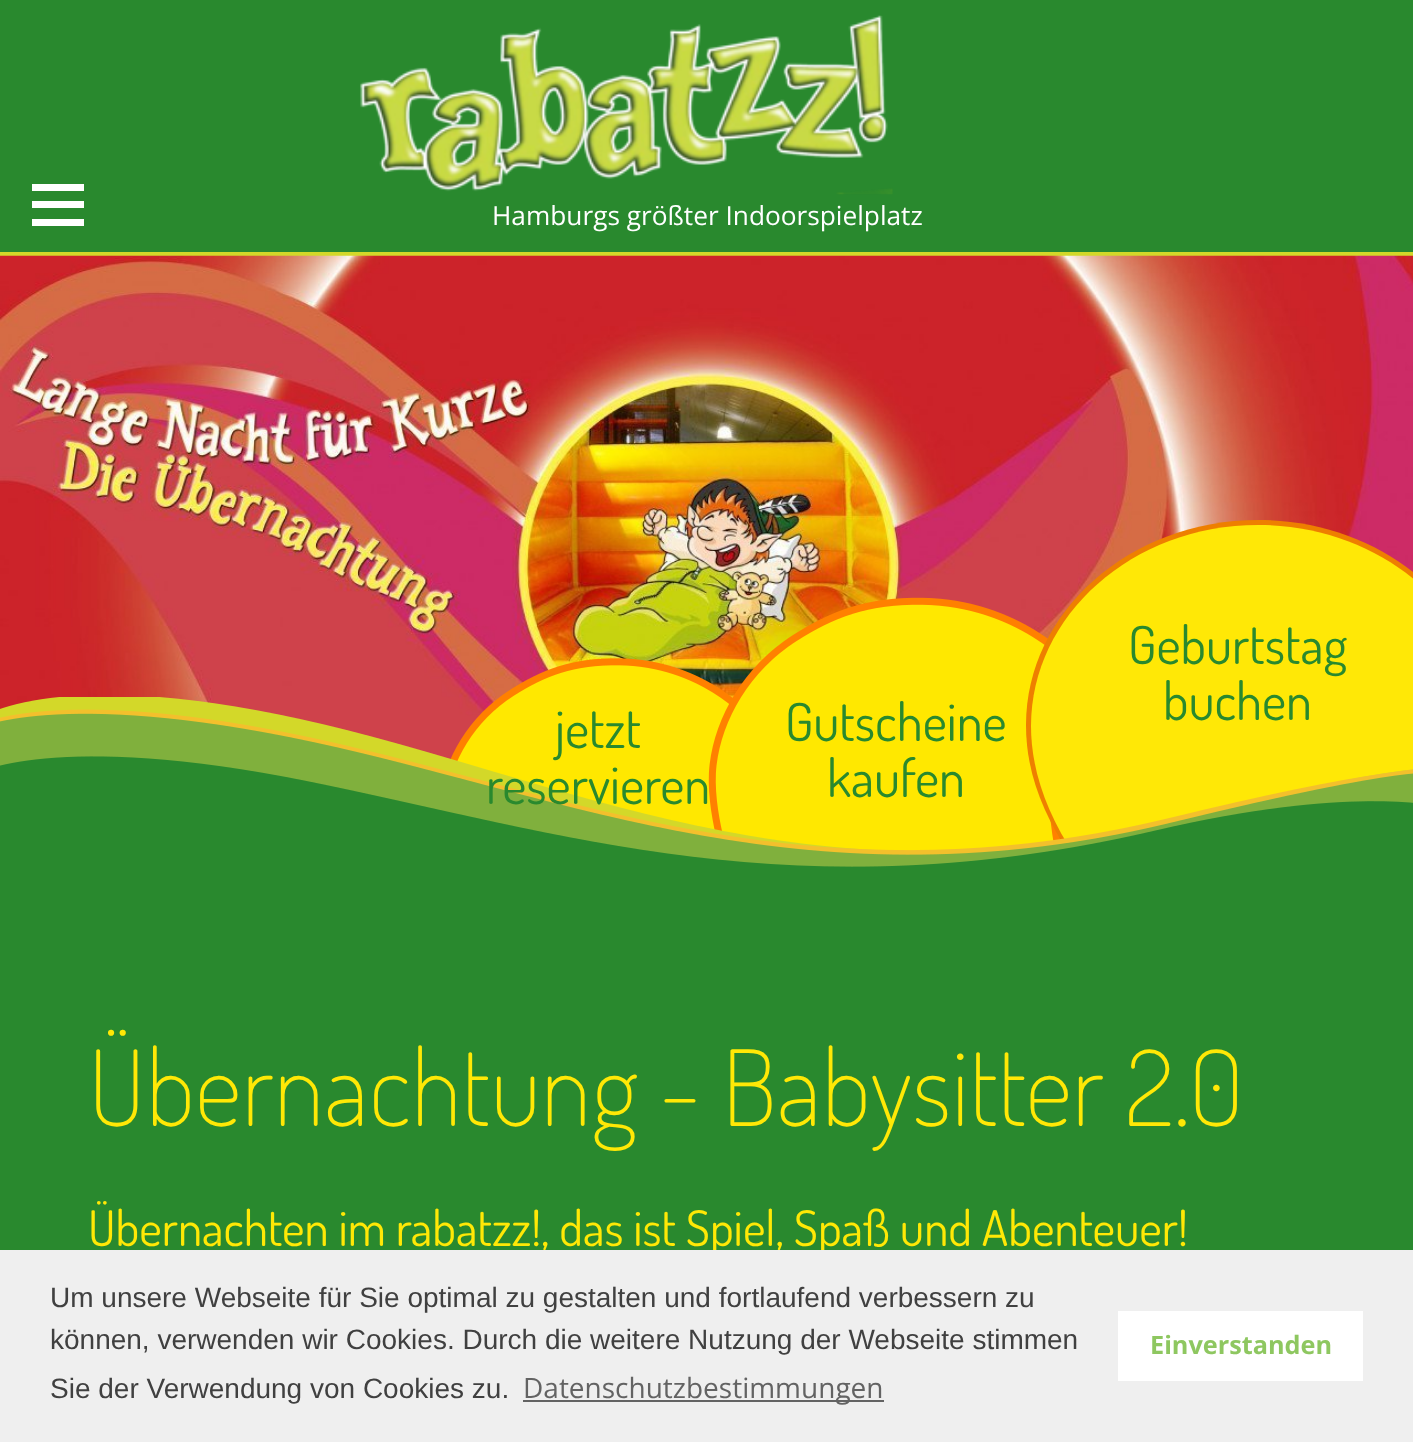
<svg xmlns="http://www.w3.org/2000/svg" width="1413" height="1442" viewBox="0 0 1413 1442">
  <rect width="100%" height="100%" fill="rgb(41,137,46)"/>
  <rect x="0" y="252" width="1413" height="4" fill="rgb(211,216,41)"/>
  <rect x="32" y="184" width="52" height="7" fill="rgb(255,255,255)"/>
  <rect x="32" y="201" width="52" height="7" fill="rgb(255,255,255)"/>
  <rect x="32" y="219" width="52" height="7" fill="rgb(255,255,255)"/>
  <image x="360" y="15" width="533" height="180" href="pic1.png"/>
  <text x="492" y="225" font-family="Open Sans" font-size="26.25" fill="rgb(255,255,255)">Hamburgs größter Indoorspielplatz</text>
  <image x="0" y="255" width="1413" height="585" href="pic2.png"/>
  <image x="450" y="597" width="611" height="254" href="pic4.png"/>
  <path d="M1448 856C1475 814 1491 770 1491 725C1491 612 1387 520 1258 520C1130 520 1026 612 1026 725C1026 771 1042 813 1071 856Z" fill="rgb(238,127,0)" fill-rule="evenodd"/>
  <path d="M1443 856C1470 815 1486 769 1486 726C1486 615 1384 525 1258 525C1133 525 1031 615 1031 726C1031 770 1047 814 1075 856Z" fill="rgb(255,232,6)" fill-rule="evenodd"/>
  <image x="0" y="697" width="1413" height="182" href="pic3.png"/>
  <g font-family="Dosis" font-size="52.5" fill="rgb(41,137,46)">
    <text x="1128" y="664">Geburtstag</text>
    <text x="1163" y="720">buchen</text>
    <text x="555" y="748">jetzt</text>
    <text x="486" y="804">reservieren</text>
    <text x="785" y="741">Gutscheine</text>
    <text x="827" y="797">kaufen</text>
  </g>
  <text x="88" y="1126" font-family="Dosis" font-size="105" font-weight="200" fill="rgb(255,232,6)">Übernachtung - Babysitter 2.0</text>
  <text x="88" y="1246" font-family="Dosis" font-size="49" fill="rgb(255,232,6)">Übernachten im rabatzz!, das ist Spiel, Spaß und Abenteuer!</text>
  <rect x="0" y="1250" width="1413" height="192" fill="rgb(239,239,239)"/>
  <g font-family="Liberation Sans" font-size="28" fill="rgb(64,64,64)">
    <text>
      <tspan x="50" y="1307">Um unsere Webseite für Sie optimal zu gestalten und fortlaufend verbessern zu</tspan>
      <tspan x="50" y="1349">können, verwenden wir Cookies. Durch die weitere Nutzung der Webseite stimmen</tspan>
      <tspan x="50" y="1398">Sie der Verwendung von Cookies zu.</tspan>
    </text>
  </g>
  <rect x="523" y="1400" width="361" height="2" fill="rgb(99,99,99)"/>
  <text x="523" y="1398" font-family="Open Sans" font-size="28" fill="rgb(99,99,99)">Datenschutzbestimmungen</text>
  <rect x="1118" y="1311" width="245" height="70" fill="rgb(255,255,255)"/>
  <text x="1150" y="1354" font-family="Open Sans" font-size="25.25" font-weight="bold" fill="rgb(142,199,96)">Einverstanden</text>
</svg>
